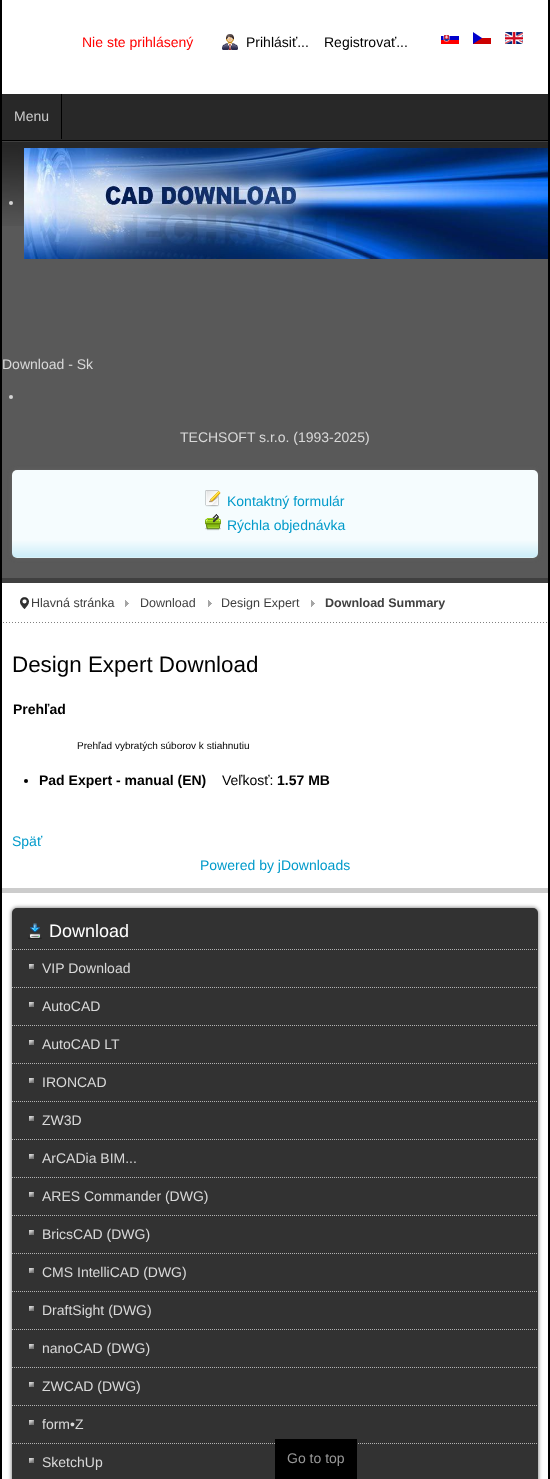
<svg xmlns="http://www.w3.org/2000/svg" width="550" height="1479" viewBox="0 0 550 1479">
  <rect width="100%" height="100%" fill="rgb(0,0,0)"/>
  <rect x="2" y="0" width="546" height="1479" fill="rgb(255,255,255)"/>
  <text x="82" y="47" font-family="Liberation Sans" font-size="14" fill="rgb(255,0,0)">Nie ste prihlásený</text>
  <image x="222" y="34" width="16" height="16" href="pic1.png"/>
  <g font-family="Liberation Sans" font-size="14" fill="rgb(0,0,0)">
    <text x="246" y="47">Prihlásiť...</text>
    <text x="324" y="47">Registrovať...</text>
  </g>
  <image x="441" y="35" width="18" height="9" href="pic2.png"/>
  <image x="473" y="32" width="18" height="12" href="pic3.png"/>
  <image x="505" y="32" width="18" height="12" href="pic4.png"/>
  <rect x="2" y="94" width="546" height="46" fill="rgb(40,40,40)"/>
  <rect x="61" y="94" width="1" height="45" fill="rgb(0,0,0)"/>
  <text x="14" y="121" font-family="Liberation Sans" font-size="14" fill="rgb(204,204,204)">Menu</text>
  <rect x="2" y="226" width="546" height="352" fill="rgb(89,89,89)"/>
  <image x="2" y="140" width="546" height="86" href="pic5.png"/>
  <rect x="2" y="578" width="546" height="5" fill="rgb(64,64,64)"/>
  <circle cx="11" cy="203" r="2" fill="rgb(212,212,212)"/>
  <image x="24" y="148" width="524" height="111" href="pic6.png"/>
  <text x="2" y="369" font-family="Liberation Sans" font-size="14" fill="rgb(217,217,217)">Download - Sk</text>
  <circle cx="11" cy="397" r="2" fill="rgb(212,212,212)"/>
  <text x="180" y="442" font-family="Liberation Sans" font-size="14" fill="rgb(217,217,217)">TECHSOFT s.r.o. (1993-2025)</text>
  <rect x="12" y="470" width="526" height="88" rx="5" fill="rgb(102,102,102)" filter="blur(2px)"/>
  <image x="12" y="470" width="526" height="88" href="pic7.png"/>
  <image x="205" y="490" width="16" height="17" href="pic8.png"/>
  <text x="227" y="506" font-family="Liberation Sans" font-size="14" fill="rgb(0,154,202)">Kontaktný formulár</text>
  <image x="205" y="514" width="16" height="17" href="pic9.png"/>
  <text x="227" y="530" font-family="Liberation Sans" font-size="14" fill="rgb(0,154,202)">Rýchla objednávka</text>
  <rect x="2" y="888" width="546" height="5" fill="rgb(204,204,204)"/>
  <image x="3" y="622" width="544" height="1" href="pic10.png"/>
  <image x="20" y="597" width="9" height="12" href="pic11.png"/>
  <image x="125" y="600" width="4" height="7" href="pic12.png"/>
  <text x="31" y="607" font-family="Liberation Sans" font-size="12.5" fill="rgb(64,64,64)">Hlavná stránka</text>
  <image x="208" y="600" width="4" height="7" href="pic12.png"/>
  <text x="140" y="607" font-family="Liberation Sans" font-size="12.5" fill="rgb(64,64,64)">Download</text>
  <image x="311" y="600" width="4" height="7" href="pic12.png"/>
  <text x="221" y="607" font-family="Liberation Sans" font-size="12.5" fill="rgb(64,64,64)">Design Expert</text>
  <text x="325" y="607" font-family="Liberation Sans" font-size="12.5" font-weight="bold" fill="rgb(64,64,64)">Download Summary</text>
  <text x="12" y="672" font-family="Liberation Sans" font-size="22.4" fill="rgb(0,0,0)">Design Expert Download</text>
  <text x="13" y="714" font-family="Liberation Sans" font-size="14" font-weight="bold" fill="rgb(0,0,0)">Prehľad</text>
  <text x="77" y="749" font-family="Liberation Sans" font-size="10" fill="rgb(0,0,0)">Prehľad vybratých súborov k stiahnutiu</text>
  <circle cx="26" cy="781" r="2" fill="rgb(0,0,0)"/>
  <text x="39" y="785" font-family="Liberation Sans" font-size="14" font-weight="bold" fill="rgb(0,0,0)">Pad Expert - manual (EN)</text>
  <text x="222" y="785" font-family="Liberation Sans" font-size="14" fill="rgb(0,0,0)">Veľkosť:</text>
  <text x="277" y="785" font-family="Liberation Sans" font-size="14" font-weight="bold" fill="rgb(0,0,0)">1.57 MB</text>
  <g font-family="Liberation Sans" font-size="14" fill="rgb(0,154,202)">
    <text x="12" y="846">Späť</text>
    <text x="200" y="870">Powered by jDownloads</text>
  </g>
  <rect x="12" y="908" width="526" height="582" rx="5" fill="rgb(102,102,102)" filter="blur(2px)"/>
  <rect x="12" y="908" width="526" height="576" rx="5" fill="rgb(50,50,50)"/>
  <image x="28" y="923" width="14" height="16" href="pic13.png"/>
  <text x="49" y="937" font-family="Liberation Sans" font-size="18" fill="rgb(255,255,255)">Download</text>
  <path d="M12 949.5H538" fill="none" stroke="rgb(179,179,179)" stroke-dasharray="1 1"/>
  <path d="M12 987.5H538" fill="none" stroke="rgb(179,179,179)" stroke-dasharray="1 1"/>
  <image x="29" y="964" width="5" height="5" href="pic14.png"/>
  <text x="42" y="973" font-family="Liberation Sans" font-size="14" fill="rgb(217,217,217)">VIP Download</text>
  <path d="M12 1025.5H538" fill="none" stroke="rgb(179,179,179)" stroke-dasharray="1 1"/>
  <image x="29" y="1002" width="5" height="5" href="pic14.png"/>
  <text x="42" y="1011" font-family="Liberation Sans" font-size="14" fill="rgb(217,217,217)">AutoCAD</text>
  <path d="M12 1063.5H538" fill="none" stroke="rgb(179,179,179)" stroke-dasharray="1 1"/>
  <image x="29" y="1040" width="5" height="5" href="pic14.png"/>
  <text x="42" y="1049" font-family="Liberation Sans" font-size="14" fill="rgb(217,217,217)">AutoCAD LT</text>
  <path d="M12 1101.5H538" fill="none" stroke="rgb(179,179,179)" stroke-dasharray="1 1"/>
  <image x="29" y="1078" width="5" height="5" href="pic14.png"/>
  <text x="42" y="1087" font-family="Liberation Sans" font-size="14" fill="rgb(217,217,217)">IRONCAD</text>
  <path d="M12 1139.5H538" fill="none" stroke="rgb(179,179,179)" stroke-dasharray="1 1"/>
  <image x="29" y="1116" width="5" height="5" href="pic14.png"/>
  <text x="42" y="1125" font-family="Liberation Sans" font-size="14" fill="rgb(217,217,217)">ZW3D</text>
  <path d="M12 1177.5H538" fill="none" stroke="rgb(179,179,179)" stroke-dasharray="1 1"/>
  <image x="29" y="1154" width="5" height="5" href="pic14.png"/>
  <text x="42" y="1163" font-family="Liberation Sans" font-size="14" fill="rgb(217,217,217)">ArCADia BIM...</text>
  <path d="M12 1215.5H538" fill="none" stroke="rgb(179,179,179)" stroke-dasharray="1 1"/>
  <image x="29" y="1192" width="5" height="5" href="pic14.png"/>
  <text x="42" y="1201" font-family="Liberation Sans" font-size="14" fill="rgb(217,217,217)">ARES Commander (DWG)</text>
  <path d="M12 1253.5H538" fill="none" stroke="rgb(179,179,179)" stroke-dasharray="1 1"/>
  <image x="29" y="1230" width="5" height="5" href="pic14.png"/>
  <text x="42" y="1239" font-family="Liberation Sans" font-size="14" fill="rgb(217,217,217)">BricsCAD (DWG)</text>
  <path d="M12 1291.5H538" fill="none" stroke="rgb(179,179,179)" stroke-dasharray="1 1"/>
  <image x="29" y="1268" width="5" height="5" href="pic14.png"/>
  <text x="42" y="1277" font-family="Liberation Sans" font-size="14" fill="rgb(217,217,217)">CMS IntelliCAD (DWG)</text>
  <path d="M12 1329.5H538" fill="none" stroke="rgb(179,179,179)" stroke-dasharray="1 1"/>
  <image x="29" y="1306" width="5" height="5" href="pic14.png"/>
  <text x="42" y="1315" font-family="Liberation Sans" font-size="14" fill="rgb(217,217,217)">DraftSight (DWG)</text>
  <path d="M12 1367.5H538" fill="none" stroke="rgb(179,179,179)" stroke-dasharray="1 1"/>
  <image x="29" y="1344" width="5" height="5" href="pic14.png"/>
  <text x="42" y="1353" font-family="Liberation Sans" font-size="14" fill="rgb(217,217,217)">nanoCAD (DWG)</text>
  <path d="M12 1405.5H538" fill="none" stroke="rgb(179,179,179)" stroke-dasharray="1 1"/>
  <image x="29" y="1382" width="5" height="5" href="pic14.png"/>
  <text x="42" y="1391" font-family="Liberation Sans" font-size="14" fill="rgb(217,217,217)">ZWCAD (DWG)</text>
  <path d="M12 1443.5H538" fill="none" stroke="rgb(179,179,179)" stroke-dasharray="1 1"/>
  <image x="29" y="1420" width="5" height="5" href="pic14.png"/>
  <text x="42" y="1429" font-family="Liberation Sans" font-size="14" fill="rgb(217,217,217)">form•Z</text>
  <image x="29" y="1458" width="5" height="5" href="pic14.png"/>
  <text x="42" y="1467" font-family="Liberation Sans" font-size="14" fill="rgb(217,217,217)">SketchUp</text>
  <rect x="275" y="1439" width="82" height="40" fill="rgb(0,0,0)"/>
  <text x="287" y="1463" font-family="Liberation Sans" font-size="14" fill="rgb(153,153,153)">Go to top</text>
</svg>
